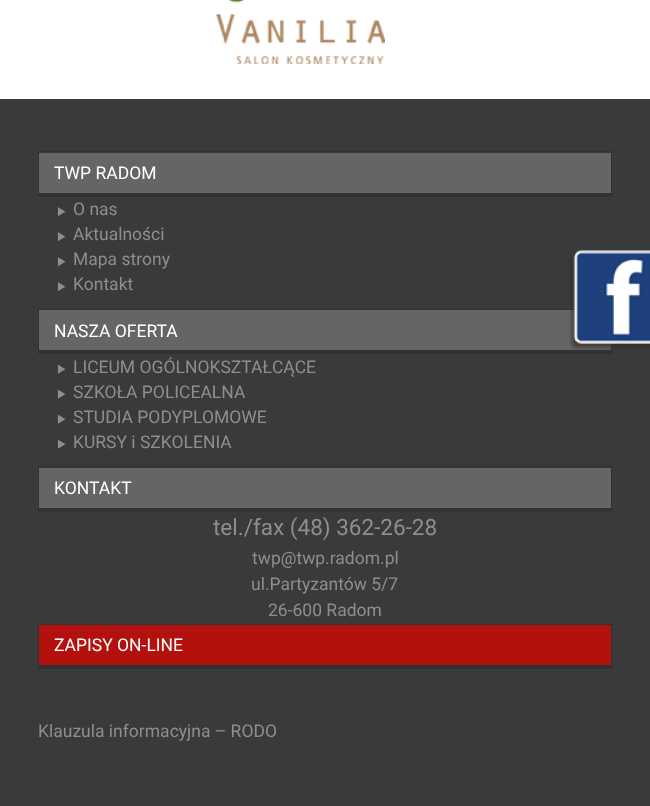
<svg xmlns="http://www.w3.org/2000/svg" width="650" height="806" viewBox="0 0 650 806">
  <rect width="100%" height="100%" fill="rgb(255,255,255)"/>
  <image x="228" y="0" width="16" height="3" href="pic1.png"/>
  <image x="216" y="14" width="169" height="50" href="pic2.png"/>
  <rect x="0" y="99" width="650" height="707" fill="rgb(58,58,58)"/>
  <rect x="39" y="153" width="572" height="40" fill="rgb(101,101,101)"/>
  <rect x="38" y="151" width="575" height="1" fill="rgb(50,50,50)"/>
  <rect x="611" y="151" width="1" height="45" fill="rgb(50,50,50)"/>
  <rect x="38" y="193" width="575" height="4" fill="rgb(50,50,50)"/>
  <rect x="38" y="151" width="1" height="45" fill="rgb(50,50,50)"/>
  <text x="54" y="179" font-family="Roboto" font-size="17.5" fill="rgb(255,255,255)">TWP RADOM</text>
  <image x="57" y="207" width="9" height="9" href="pic3.png"/>
  <text x="73" y="215" font-family="Roboto" font-size="17.5" fill="rgb(142,142,142)">O nas</text>
  <image x="57" y="232" width="9" height="9" href="pic3.png"/>
  <text x="73" y="240" font-family="Roboto" font-size="17.5" fill="rgb(142,142,142)">Aktualności</text>
  <image x="57" y="257" width="9" height="9" href="pic3.png"/>
  <text x="73" y="265" font-family="Roboto" font-size="17.5" fill="rgb(142,142,142)">Mapa strony</text>
  <image x="57" y="282" width="9" height="9" href="pic3.png"/>
  <text x="73" y="290" font-family="Roboto" font-size="17.5" fill="rgb(142,142,142)">Kontakt</text>
  <rect x="39" y="310" width="572" height="40" fill="rgb(101,101,101)"/>
  <rect x="38" y="309" width="538" height="1" fill="rgb(50,50,50)"/>
  <rect x="611" y="342" width="1" height="12" fill="rgb(50,50,50)"/>
  <rect x="38" y="350" width="575" height="4" fill="rgb(50,50,50)"/>
  <rect x="38" y="309" width="1" height="45" fill="rgb(50,50,50)"/>
  <text x="54" y="337" font-family="Roboto" font-size="17.5" fill="rgb(255,255,255)">NASZA OFERTA</text>
  <image x="57" y="364" width="9" height="10" href="pic4.png"/>
  <text x="73" y="373" font-family="Roboto" font-size="17.5" fill="rgb(142,142,142)">LICEUM OGÓLNOKSZTAŁCĄCE</text>
  <image x="57" y="389" width="9" height="10" href="pic4.png"/>
  <text x="73" y="398" font-family="Roboto" font-size="17.5" fill="rgb(142,142,142)">SZKOŁA POLICEALNA</text>
  <image x="57" y="414" width="9" height="10" href="pic4.png"/>
  <text x="73" y="423" font-family="Roboto" font-size="17.5" fill="rgb(142,142,142)">STUDIA PODYPLOMOWE</text>
  <image x="57" y="439" width="9" height="10" href="pic4.png"/>
  <text x="73" y="448" font-family="Roboto" font-size="17.5" fill="rgb(142,142,142)">KURSY i SZKOLENIA</text>
  <rect x="39" y="468" width="572" height="40" fill="rgb(101,101,101)"/>
  <rect x="38" y="466" width="575" height="1" fill="rgb(50,50,50)"/>
  <rect x="611" y="466" width="1" height="45" fill="rgb(50,50,50)"/>
  <rect x="38" y="508" width="575" height="4" fill="rgb(50,50,50)"/>
  <rect x="38" y="466" width="1" height="45" fill="rgb(50,50,50)"/>
  <text x="54" y="494" font-family="Roboto" font-size="17.5" fill="rgb(255,255,255)">KONTAKT</text>
  <text x="213" y="535" font-family="Roboto" font-size="22.5" fill="rgb(142,142,142)">tel./fax (48) 362-26-28</text>
  <g font-family="Roboto" font-size="17.5" fill="rgb(142,142,142)">
    <text x="252" y="564">twp@twp.radom.pl</text>
    <text x="251" y="590">ul.Partyzantów 5/7</text>
    <text x="268" y="616">26-600 Radom</text>
  </g>
  <rect x="39" y="625" width="572" height="40" fill="rgb(178,17,13)"/>
  <rect x="38" y="624" width="575" height="1" fill="rgb(50,50,50)"/>
  <rect x="611" y="624" width="1" height="45" fill="rgb(50,50,50)"/>
  <rect x="38" y="665" width="575" height="4" fill="rgb(50,50,50)"/>
  <rect x="38" y="624" width="1" height="45" fill="rgb(50,50,50)"/>
  <text x="54" y="651" font-family="Roboto" font-size="17.5" fill="rgb(255,255,255)">ZAPISY ON-LINE</text>
  <text x="38" y="737" font-family="Roboto" font-size="17.5" fill="rgb(142,142,142)">Klauzula informacyjna – RODO</text>
  <image x="569" y="250" width="81" height="100" href="pic5.png"/>
</svg>
